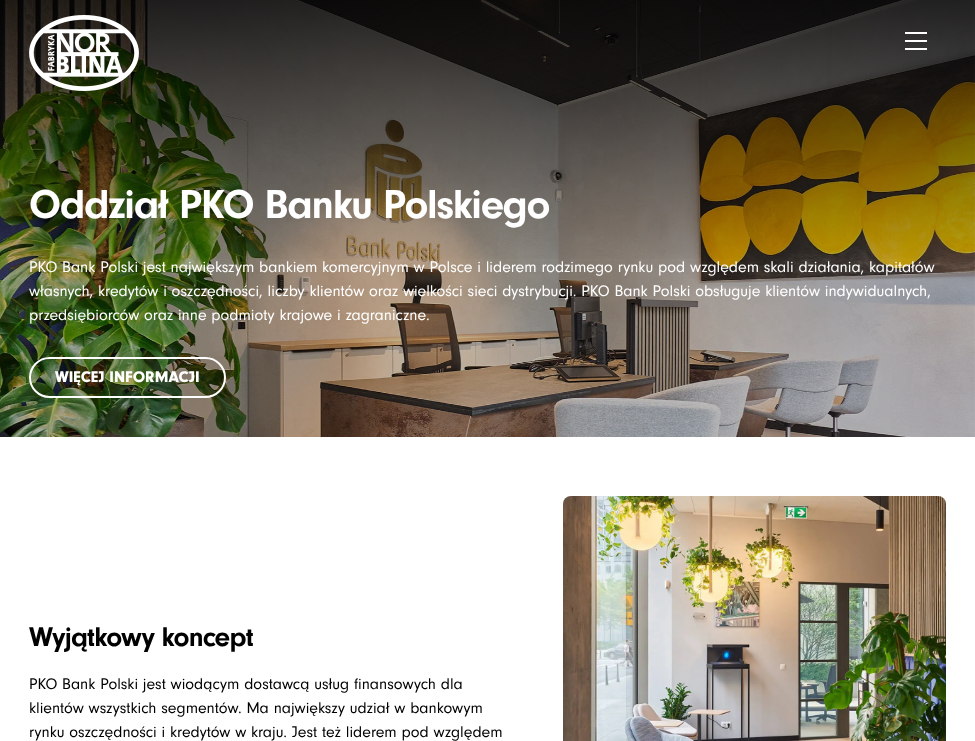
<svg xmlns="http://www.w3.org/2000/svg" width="975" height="741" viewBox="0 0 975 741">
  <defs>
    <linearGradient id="g1" gradientUnits="userSpaceOnUse" x1="488" y1="0" x2="488" y2="437"><stop offset="0" stop-color="rgb(0,0,0)" stop-opacity="0.75"/><stop offset="0.61" stop-color="rgb(0,0,0)" stop-opacity="0"/></linearGradient>
  </defs>
  <rect width="100%" height="100%" fill="rgb(255,255,255)"/>
  <image x="0" y="0" width="975" height="437" href="pic2.png"/>
  <rect x="0" y="0" width="975" height="259" fill="url(#g1)"/>
  <image x="29" y="15" width="110" height="76" href="pic1.png"/>
  <rect x="905" y="48" width="22" height="2" fill="rgb(255,255,255)"/>
  <rect x="905" y="32" width="22" height="2" fill="rgb(255,255,255)"/>
  <rect x="905" y="40" width="22" height="2" fill="rgb(255,255,255)"/>
  <text x="29" y="218" font-family="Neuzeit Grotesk" font-size="42" font-weight="bold" letter-spacing="-1.25" fill="rgb(255,255,255)">Oddział PKO Banku Polskiego</text>
  <g font-family="Neuzeit Grotesk" font-size="16" fill="rgb(255,255,255)">
    <text>
      <tspan x="29" y="272">PKO Bank Polski jest największym bankiem komercyjnym w Polsce i liderem rodzimego rynku pod względem skali działania, kapitałów</tspan>
      <tspan x="29" y="296">własnych, kredytów i oszczędności, liczby klientów oraz wielkości sieci dystrybucji. PKO Bank Polski obsługuje klientów indywidualnych,</tspan>
      <tspan x="29" y="320">przedsiębiorców oraz inne podmioty krajowe i zagraniczne.</tspan>
    </text>
  </g>
  <rect x="30" y="358" width="195" height="39" rx="19.5" fill="none" stroke="rgb(255,255,255)" stroke-width="2"/>
  <text x="55" y="382" font-family="Neuzeit Grotesk" font-size="16" font-weight="900" fill="rgb(255,255,255)">WIĘCEJ INFORMACJI</text>
  <text x="29" y="646" font-family="Neuzeit Grotesk" font-size="28" font-weight="bold" letter-spacing="-0.8" fill="rgb(0,0,0)">Wyjątkowy koncept</text>
  <g font-family="Neuzeit Grotesk" font-size="16" fill="rgb(0,0,0)">
    <text>
      <tspan x="29" y="689">PKO Bank Polski jest wiodącym dostawcą usług finansowych dla</tspan>
      <tspan x="29" y="713">klientów wszystkich segmentów. Ma największy udział w bankowym</tspan>
      <tspan x="29" y="737">rynku oszczędności i kredytów w kraju. Jest też liderem pod względem</tspan>
    </text>
  </g>
  <image x="563" y="496" width="383" height="245" href="pic3.png"/>
</svg>
